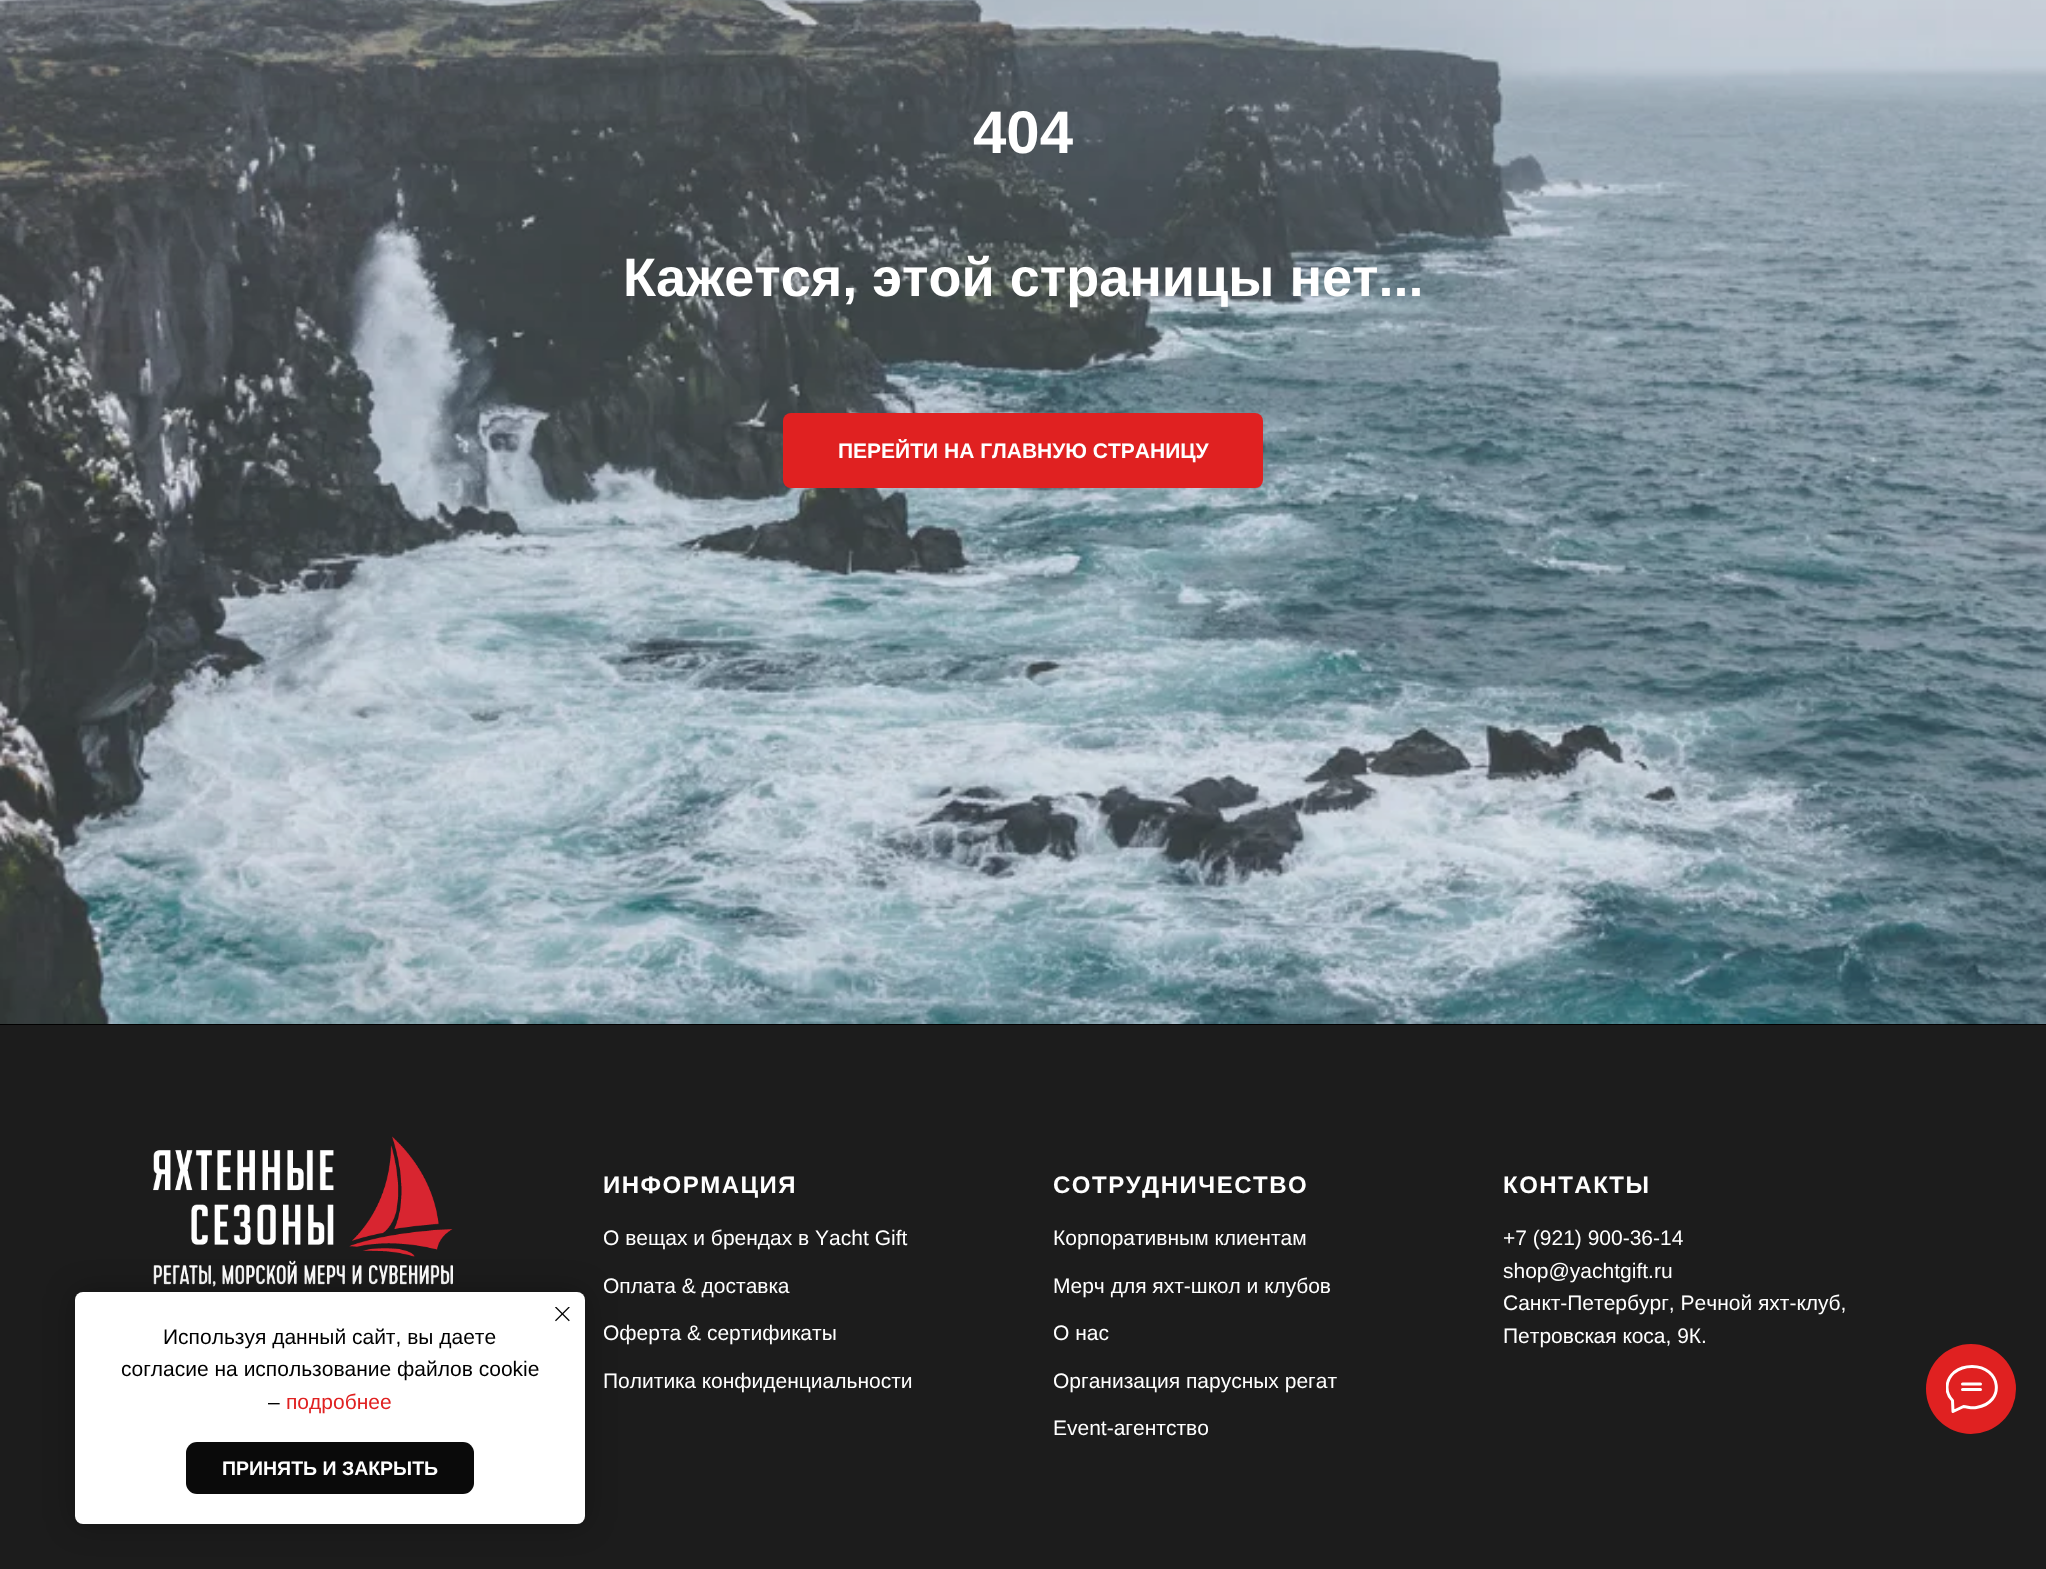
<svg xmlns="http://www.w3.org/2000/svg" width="2046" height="1569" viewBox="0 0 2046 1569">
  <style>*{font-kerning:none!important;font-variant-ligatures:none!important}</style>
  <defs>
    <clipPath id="clip1"><rect x="1946" y="1365" width="52" height="48"/></clipPath>
  </defs>
  <rect width="100%" height="100%" fill="rgb(28,28,28)"/>
  <rect x="0" y="1024" width="2046" height="1" fill="rgb(0,0,0)"/>
  <image x="0" y="0" width="2046" height="1024" href="pic1.png"/>
  <text x="973" y="153" font-family="Liberation Sans" font-size="60" font-weight="bold" fill="rgb(255,255,255)">404</text>
  <text x="623" y="296" font-family="Liberation Sans" font-size="54" font-weight="bold" fill="rgb(255,255,255)">Кажется, этой страницы нет...</text>
  <rect x="783" y="413" width="480" height="75" rx="8" fill="rgb(224,33,33)"/>
  <text x="838" y="458" font-family="Liberation Sans" font-size="21" font-weight="bold" fill="rgb(255,255,255)">ПЕРЕЙТИ НА ГЛАВНУЮ СТРАНИЦУ</text>
  <image x="153" y="1136" width="300" height="151" href="pic3.png"/>
  <rect x="75" y="1292" width="510" height="232" rx="8" fill="rgba(0,0,0,0.3)" filter="blur(15px)"/>
  <rect x="75" y="1292" width="510" height="232" rx="8" fill="rgb(255,255,255)"/>
  <image x="555" y="1307" width="15" height="15" href="pic2.png"/>
  <g font-family="Liberation Sans" font-size="21" fill="rgb(0,0,0)">
    <text x="163" y="1344">Используя данный сайт, вы даете</text>
    <text x="121" y="1376">согласие на использование файлов cookie</text>
    <text x="268" y="1409">–</text>
  </g>
  <text x="286" y="1409" font-family="Liberation Sans" font-size="21" fill="rgb(224,33,33)">подробнее</text>
  <rect x="186" y="1442" width="288" height="52" rx="11" fill="rgb(10,10,10)"/>
  <text x="222" y="1475" font-family="Liberation Sans" font-size="19.5" font-weight="bold" fill="rgb(255,255,255)">ПРИНЯТЬ И ЗАКРЫТЬ</text>
  <text x="603" y="1193" font-family="Liberation Sans" font-size="24" font-weight="bold" letter-spacing="1.5" fill="rgb(255,255,255)">ИНФОРМАЦИЯ</text>
  <g font-family="Liberation Sans" font-size="21" fill="rgb(255,255,255)">
    <text x="603" y="1245">О вещах и брендах в Yacht Gift</text>
    <text x="603" y="1293">Оплата &amp; доставка</text>
    <text x="603" y="1340">Оферта &amp; сертификаты</text>
    <text x="603" y="1388">Политика конфиденциальности</text>
  </g>
  <text x="1053" y="1193" font-family="Liberation Sans" font-size="24" font-weight="bold" letter-spacing="1.5" fill="rgb(255,255,255)">СОТРУДНИЧЕСТВО</text>
  <g font-family="Liberation Sans" font-size="21" fill="rgb(255,255,255)">
    <text x="1053" y="1245">Корпоративным клиентам</text>
    <text x="1053" y="1293">Мерч для яхт-школ и клубов</text>
    <text x="1053" y="1340">О нас</text>
    <text x="1053" y="1388">Организация парусных регат</text>
    <text x="1053" y="1435">Event-агентство</text>
  </g>
  <text x="1503" y="1193" font-family="Liberation Sans" font-size="24" font-weight="bold" letter-spacing="1.5" fill="rgb(255,255,255)">КОНТАКТЫ</text>
  <g font-family="Liberation Sans" font-size="21" fill="rgb(255,255,255)">
    <text>
      <tspan x="1503" y="1245">+7 (921) 900-36-14</tspan>
      <tspan x="1503" y="1278">shop@yachtgift.ru</tspan>
      <tspan x="1503" y="1310">Санкт-Петербург, Речной</tspan>
    </text>
    <text x="1758" y="1310">яхт-клуб,</text>
    <text x="1503" y="1343">Петровская коса, 9К.</text>
  </g>
  <circle cx="1971" cy="1389" r="45" fill="rgb(224,33,33)"/>
  <g clip-path="url(#clip1)">
    <path d="M1962.5 1384H1980.5M1962.5 1389.5H1980.5M1952.5 1400.5C1944.5 1392.5 1945.5 1380 1954 1372.5C1959 1368.5 1965.5 1366.5 1972 1366.5C2001 1366.5 2006 1402.5 1976.5 1407.5C1971.5 1408.5 1968.5 1407 1963.5 1406.5L1953 1411.5Z" fill="none" stroke="rgb(255,255,255)" stroke-width="3" stroke-linecap="round" stroke-linejoin="round"/>
  </g>
</svg>
